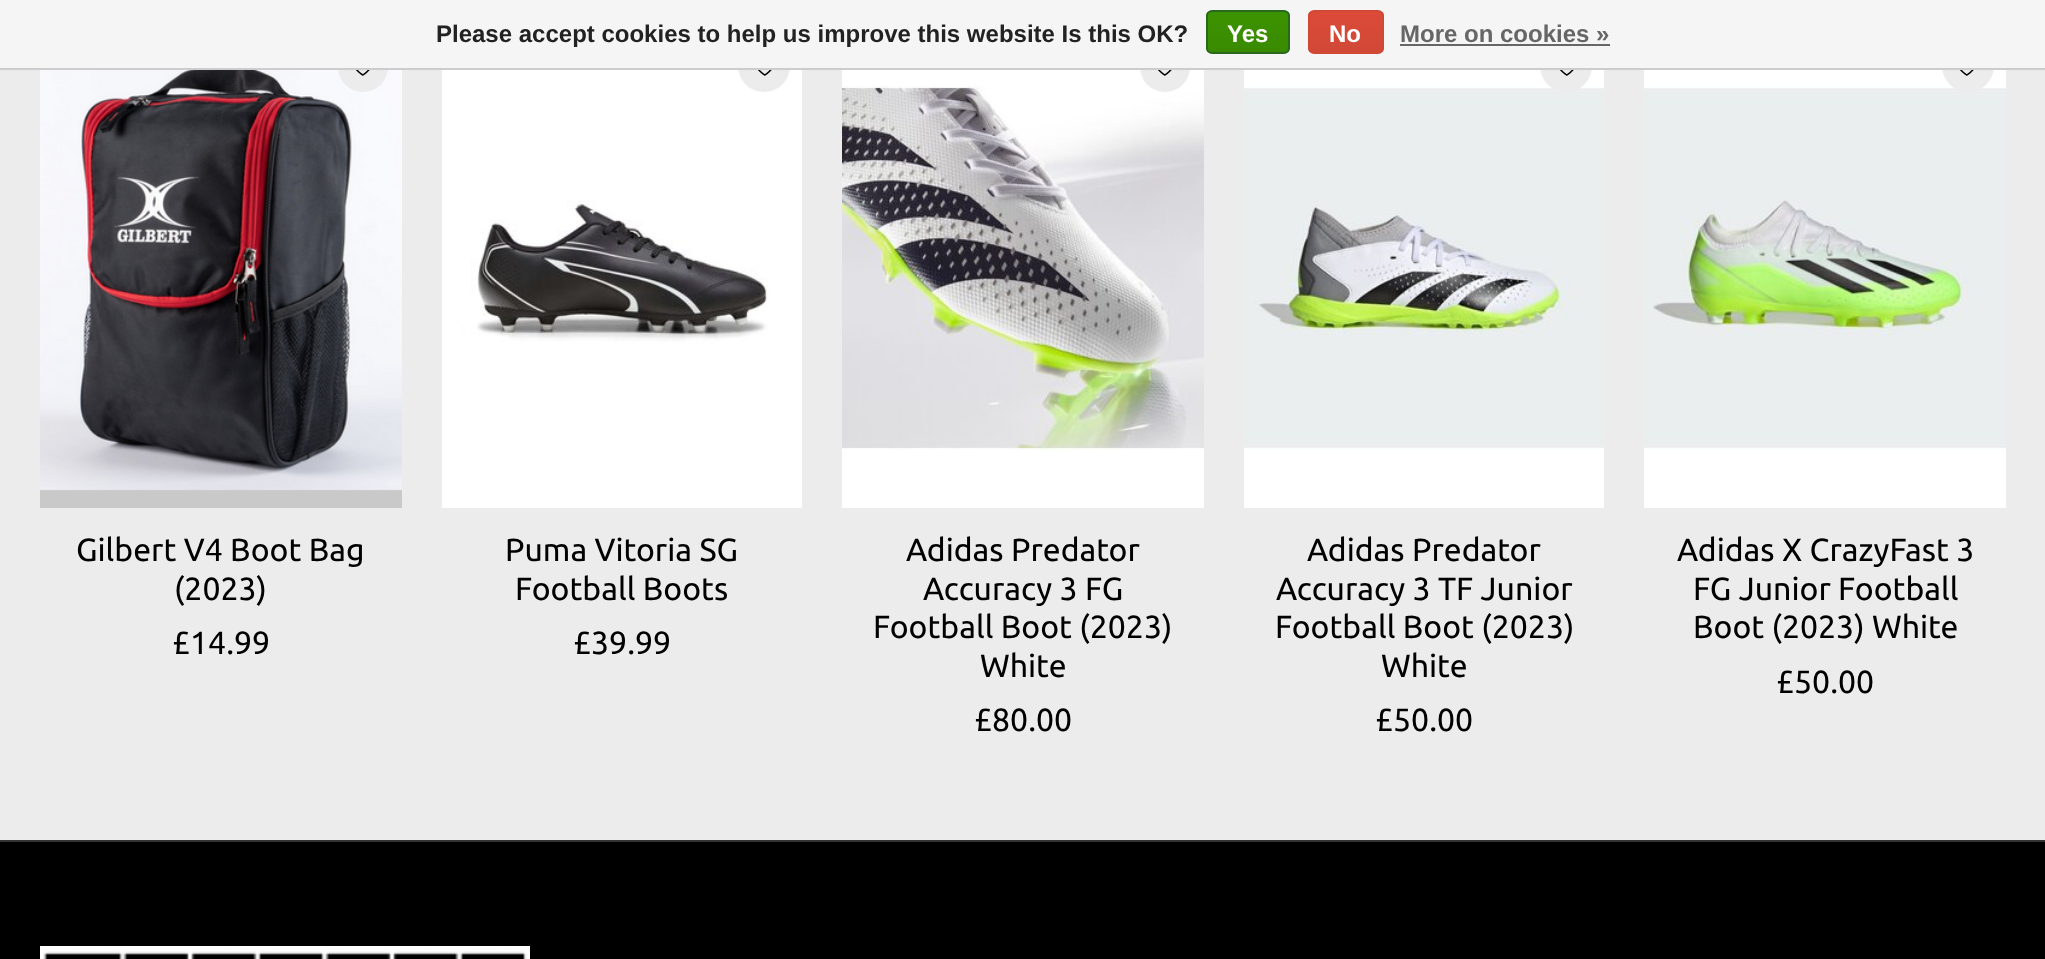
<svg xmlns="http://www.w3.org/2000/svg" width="2045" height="959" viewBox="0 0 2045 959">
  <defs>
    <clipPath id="clip1"><rect x="1206" y="10" width="84" height="44" rx="6"/></clipPath>
    <linearGradient id="g1" gradientUnits="userSpaceOnUse" x1="1248" y1="12" x2="1248" y2="52"><stop offset="0" stop-color="rgb(60,147,0)"/><stop offset="1" stop-color="rgb(57,138,0)"/></linearGradient>
    <clipPath id="clip2"><rect x="1308" y="10" width="76" height="44" rx="6"/></clipPath>
    <linearGradient id="g2" gradientUnits="userSpaceOnUse" x1="1346" y1="12" x2="1346" y2="52"><stop offset="0" stop-color="rgb(220,74,56)"/><stop offset="1" stop-color="rgb(209,72,54)"/></linearGradient>
  </defs>
  <rect width="100%" height="100%" fill="rgb(236,236,236)"/>
  <rect x="40" y="489" width="362" height="19" fill="rgb(201,201,201)"/>
  <image x="40" y="70" width="362" height="421" href="pic2.png"/>
  <rect x="338" y="40" width="50" height="52" rx="25" fill="rgb(236,236,236)"/>
  <image x="442" y="70" width="360" height="438" href="pic3.png"/>
  <circle cx="764" cy="66" r="26" fill="rgb(236,236,236)"/>
  <image x="842" y="70" width="362" height="438" href="pic4.png"/>
  <rect x="1140" y="40" width="50" height="52" rx="25" fill="rgb(236,236,236)"/>
  <image x="1244" y="70" width="360" height="438" href="pic5.png"/>
  <circle cx="1566" cy="66" r="26" fill="rgb(236,236,236)"/>
  <image x="1644" y="70" width="362" height="438" href="pic6.png"/>
  <circle cx="1968" cy="66" r="26" fill="rgb(236,236,236)"/>
  <rect x="0" y="0" width="2045" height="68" fill="rgb(245,245,245)"/>
  <rect x="0" y="68" width="2045" height="2" fill="rgb(204,204,204)"/>
  <text x="436" y="42" font-family="Liberation Sans" font-size="24" font-weight="bold" fill="rgb(34,34,34)">Please accept cookies to help us improve this website Is this OK?</text>
  <g clip-path="url(#clip1)">
    <rect x="1206" y="12" width="84" height="40" fill="url(#g1)"/>
  </g>
  <rect x="1207" y="11" width="82" height="42" rx="5" fill="none" stroke="rgb(41,105,29)" stroke-width="2"/>
  <text x="1227" y="42" font-family="Liberation Sans" font-size="24" font-weight="bold" fill="rgb(255,255,255)">Yes</text>
  <g clip-path="url(#clip2)">
    <rect x="1308" y="12" width="76" height="40" fill="url(#g2)"/>
  </g>
  <rect x="1309" y="11" width="74" height="42" rx="5" fill="none" stroke="rgb(209,72,54)" stroke-width="2"/>
  <text x="1329" y="42" font-family="Liberation Sans" font-size="24" font-weight="bold" fill="rgb(255,255,255)">No</text>
  <text x="1400" y="42" font-family="Liberation Sans" font-size="24" font-weight="bold" fill="rgb(102,102,102)">More on cookies »</text>
  <rect x="1400" y="44" width="210" height="2" fill="rgb(102,102,102)"/>
  <image x="356" y="70" width="14" height="6" href="pic1.png"/>
  <g font-family="Ubuntu" font-size="32" fill="rgb(0,0,0)">
    <text x="76" y="561">Gilbert V4 Boot Bag</text>
    <text x="174" y="600">(2023)</text>
    <text x="172" y="654">£14.99</text>
  </g>
  <image x="758" y="70" width="14" height="6" href="pic1.png"/>
  <g font-family="Ubuntu" font-size="32" fill="rgb(0,0,0)">
    <text x="505" y="561">Puma Vitoria SG</text>
    <text x="515" y="600">Football Boots</text>
    <text x="573" y="654">£39.99</text>
  </g>
  <image x="1158" y="70" width="14" height="6" href="pic1.png"/>
  <g font-family="Ubuntu" font-size="32" fill="rgb(0,0,0)">
    <text x="906" y="561">Adidas Predator</text>
    <text x="923" y="600">Accuracy 3 FG</text>
    <text x="873" y="638">Football Boot (2023)</text>
    <text x="980" y="677">White</text>
    <text x="974" y="731">£80.00</text>
  </g>
  <image x="1560" y="70" width="14" height="6" href="pic1.png"/>
  <g font-family="Ubuntu" font-size="32" fill="rgb(0,0,0)">
    <text x="1307" y="561">Adidas Predator</text>
    <text x="1276" y="600">Accuracy 3 TF Junior</text>
    <text x="1275" y="638">Football Boot (2023)</text>
    <text x="1381" y="677">White</text>
    <text x="1375" y="731">£50.00</text>
  </g>
  <image x="1960" y="70" width="14" height="6" href="pic1.png"/>
  <g font-family="Ubuntu" font-size="32" fill="rgb(0,0,0)">
    <text x="1677" y="561">Adidas X CrazyFast 3</text>
    <text>
      <tspan x="1693" y="600">FG Junior Football</tspan>
      <tspan x="1693" y="638">Boot (2023) White</tspan>
    </text>
    <text x="1776" y="693">£50.00</text>
  </g>
  <rect x="0" y="842" width="2045" height="117" fill="rgb(0,0,0)"/>
  <rect x="0" y="840" width="2045" height="2" fill="rgb(51,51,51)"/>
  <image x="40" y="946" width="490" height="13" href="pic7.png"/>
</svg>
